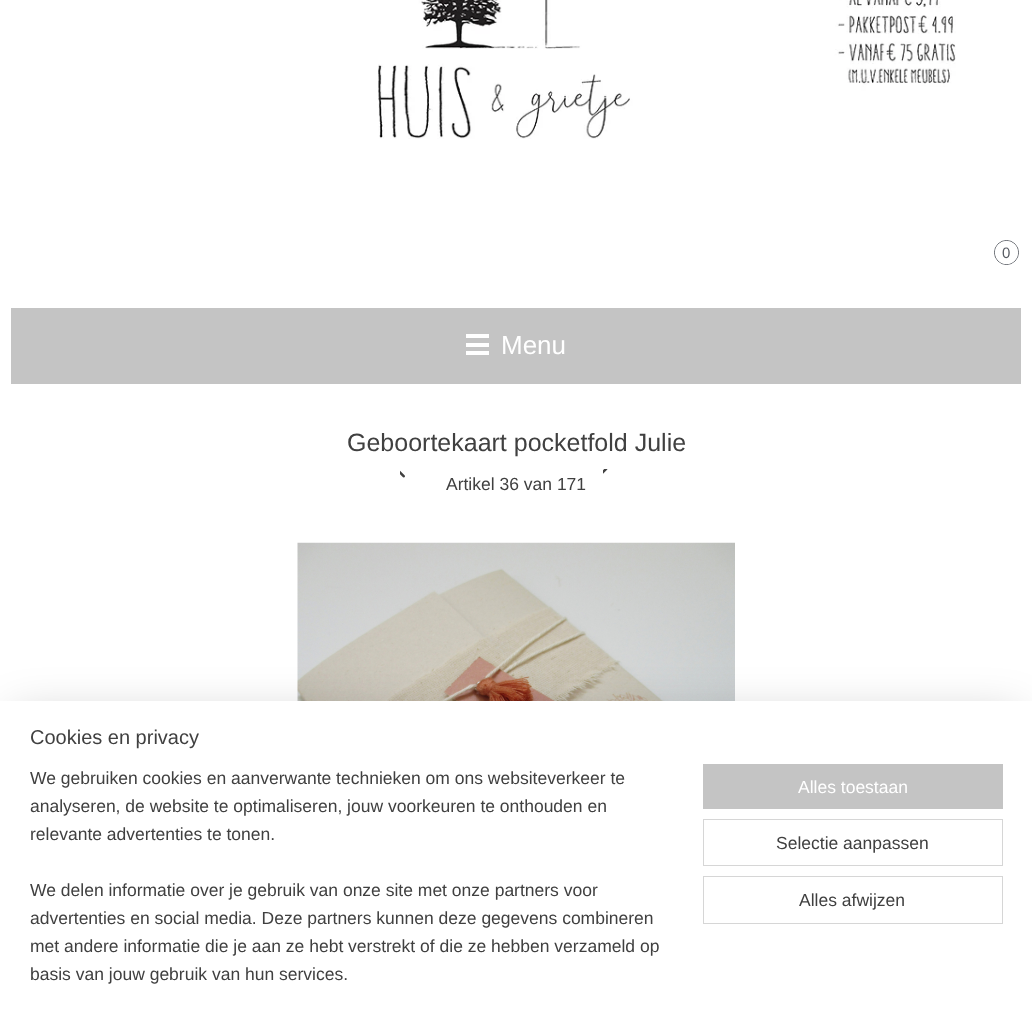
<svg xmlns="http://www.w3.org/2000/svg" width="1032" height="1017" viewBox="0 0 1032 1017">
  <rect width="100%" height="100%" fill="rgb(255,255,255)"/>
  <image x="378" y="0" width="578" height="139" href="pic1.png"/>
  <circle cx="1006.5" cy="252.5" r="12" fill="none" stroke="rgb(87,91,98)"/>
  <circle cx="1006.5" cy="252.5" r="11.5" fill="rgb(255,255,255)"/>
  <text x="1002" y="258" font-family="Liberation Sans" font-size="15" fill="rgb(87,91,98)">0</text>
  <rect x="11" y="308" width="1010" height="76" fill="rgb(196,196,196)"/>
  <rect x="466" y="343" width="23" height="4" fill="rgb(255,255,255)"/>
  <rect x="466" y="334" width="23" height="4" fill="rgb(255,255,255)"/>
  <rect x="466" y="351" width="23" height="4" fill="rgb(255,255,255)"/>
  <text x="501" y="354" font-family="Liberation Sans" font-size="26" fill="rgb(255,255,255)">Menu</text>
  <text x="347" y="451" font-family="Liberation Sans" font-size="25" fill="rgb(64,64,64)">Geboortekaart pocketfold Julie</text>
  <image x="400" y="470" width="5" height="8" href="pic2.png"/>
  <image x="603" y="469" width="5" height="5" href="pic3.png"/>
  <text x="446" y="490" font-family="Liberation Sans" font-size="17.5" fill="rgb(64,64,64)">Artikel 36 van 171</text>
  <image x="297" y="542" width="438" height="159" href="pic4.png"/>
  <rect x="13" y="714" width="1007" height="291" fill="rgba(0,0,0,0.2)" filter="blur(22.5px)"/>
  <rect x="0" y="701" width="1032" height="316" fill="rgb(255,255,255)"/>
  <text x="30" y="744" font-family="Liberation Sans" font-size="20" fill="rgb(64,64,64)">Cookies en privacy</text>
  <g font-family="Liberation Sans" font-size="17.5" fill="rgb(64,64,64)">
    <text>
      <tspan x="30" y="784">We gebruiken cookies en aanverwante technieken om ons websiteverkeer te</tspan>
      <tspan x="30" y="812">analyseren, de website te optimaliseren, jouw voorkeuren te onthouden en</tspan>
      <tspan x="30" y="840">relevante advertenties te tonen.</tspan>
    </text>
    <text>
      <tspan x="30" y="896">We delen informatie over je gebruik van onze site met onze partners voor</tspan>
      <tspan x="30" y="924">advertenties en social media. Deze partners kunnen deze gegevens combineren</tspan>
      <tspan x="30" y="952">met andere informatie die je aan ze hebt verstrekt of die ze hebben verzameld op</tspan>
      <tspan x="30" y="980">basis van jouw gebruik van hun services.</tspan>
    </text>
  </g>
  <rect x="703" y="764" width="300" height="45" fill="rgb(196,196,196)"/>
  <text x="798" y="793" font-family="Liberation Sans" font-size="17.5" fill="rgb(255,255,255)">Alles toestaan</text>
  <rect x="703.5" y="819.5" width="299" height="46" fill="none" stroke="rgb(214,214,214)"/>
  <text x="776" y="849" font-family="Liberation Sans" font-size="17.5" fill="rgb(64,64,64)">Selectie aanpassen</text>
  <rect x="703.5" y="876.5" width="299" height="47" fill="none" stroke="rgb(214,214,214)"/>
  <text x="799" y="906" font-family="Liberation Sans" font-size="17.5" fill="rgb(64,64,64)">Alles afwijzen</text>
</svg>
